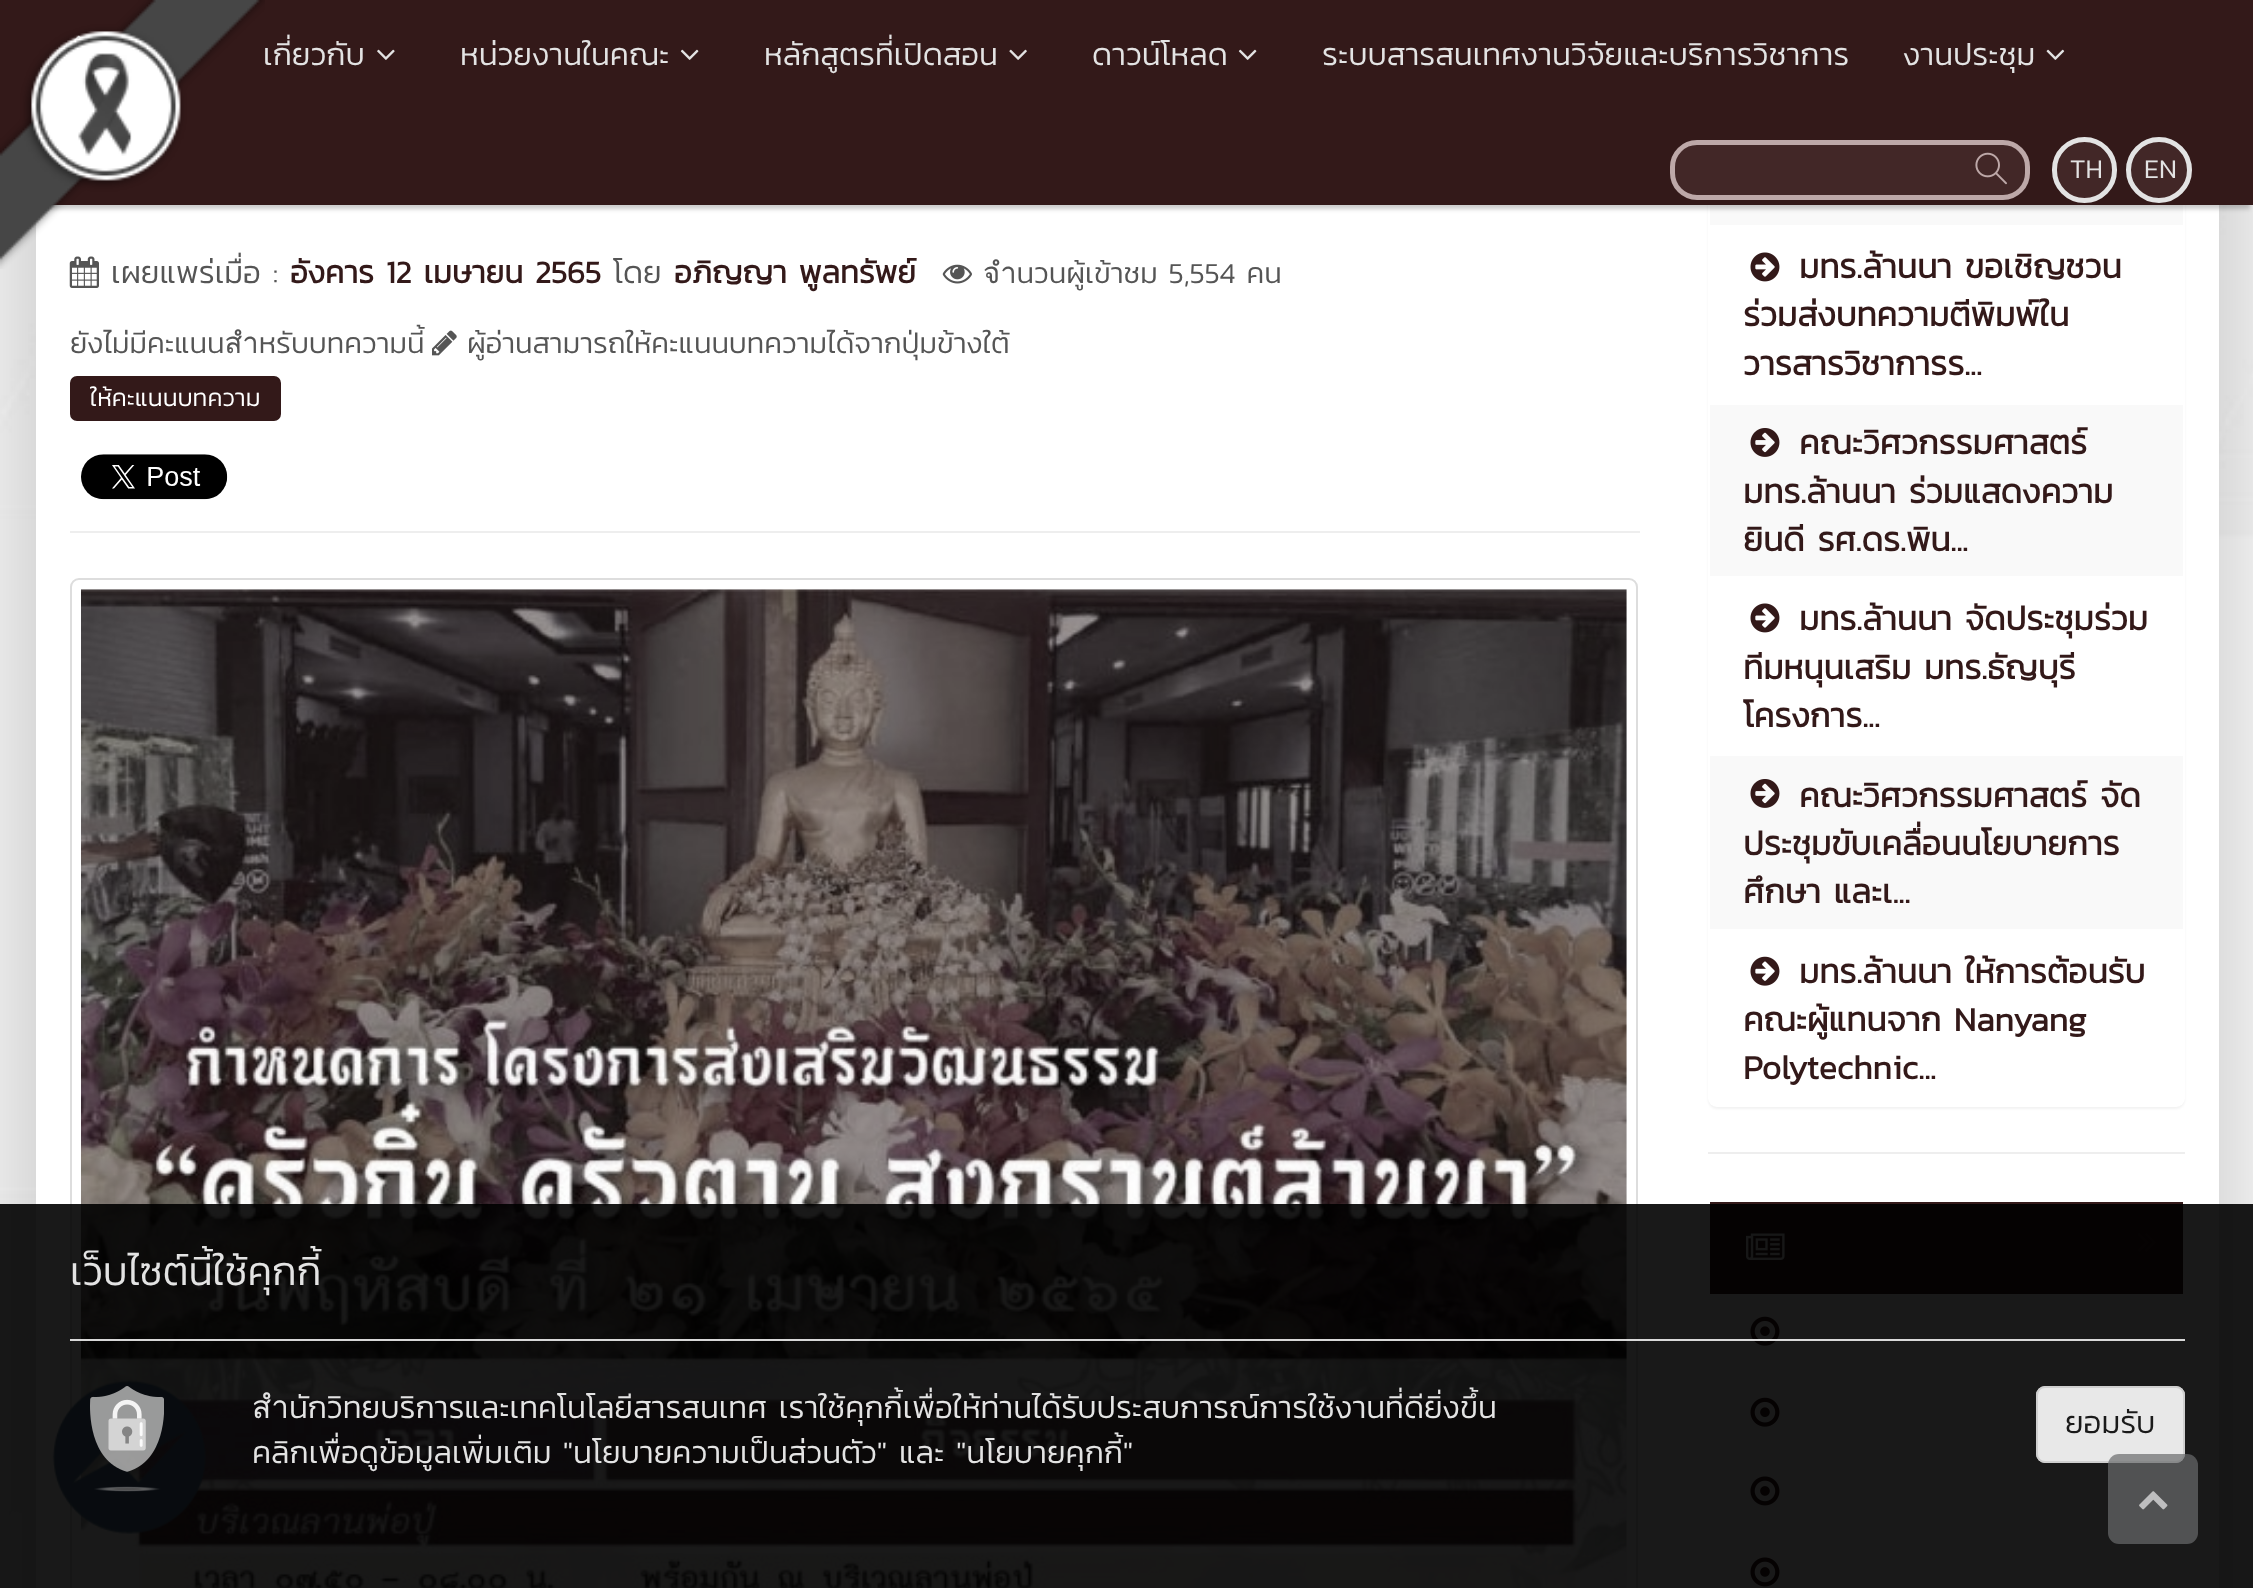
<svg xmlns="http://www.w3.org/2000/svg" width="2253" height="1588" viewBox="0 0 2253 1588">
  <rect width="100%" height="100%" fill="rgb(255,255,255)"/>
  <image x="0" y="205" width="2253" height="1383" href="pic1.png"/>
  <rect x="14" y="-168" width="2227" height="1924" fill="rgba(0,0,0,0.2)" filter="blur(56px)"/>
  <rect x="36" y="205" width="2183" height="1383" fill="rgb(255,255,255)"/>
  <rect x="1708" y="-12" width="477" height="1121" rx="9" fill="rgba(0,0,0,0.05)" filter="blur(1px)"/>
  <rect x="1708" y="-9" width="477" height="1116" rx="9" fill="rgb(255,255,255)"/>
  <rect x="1710" y="205" width="473" height="20" fill="rgb(249,249,249)"/>
  <rect x="5" y="14" width="2245" height="195" fill="rgba(0,0,0,0.2)" filter="blur(2px)"/>
  <rect x="0" y="0" width="2253" height="203" fill="rgb(51,25,25)"/>
  <rect x="51" y="203" width="2202" height="2" fill="rgb(51,25,25)"/>
  <image x="70" y="35" width="12" height="9" href="pic3.png"/>
  <text x="263" y="65" font-family="Kanit" font-size="31.5" font-weight="300" fill="rgb(227,227,227)">เกี่ยวกับ</text>
  <image x="69" y="256" width="30" height="32" href="pic9.png"/>
  <text x="111" y="283" font-family="Kanit" font-size="31.5" font-weight="300" fill="rgb(85,85,85)">เผยแพร่เมื่อ :</text>
  <image x="0" y="0" width="265" height="269" href="pic2.png"/>
  <image x="377" y="49" width="18" height="11" href="pic4.png"/>
  <text x="460" y="65" font-family="Kanit" font-size="31.5" font-weight="300" fill="rgb(227,227,227)">หน่วยงานในคณะ</text>
  <image x="680" y="49" width="19" height="11" href="pic5.png"/>
  <text x="764" y="65" font-family="Kanit" font-size="31.5" font-weight="300" fill="rgb(227,227,227)">หลักสูตรที่เปิดสอน</text>
  <image x="1009" y="49" width="18" height="11" href="pic6.png"/>
  <text x="1092" y="65" font-family="Kanit" font-size="31.5" font-weight="300" fill="rgb(227,227,227)">ดาวน์โหลด</text>
  <image x="1238" y="49" width="19" height="11" href="pic5.png"/>
  <g font-family="Kanit" font-size="31.5" font-weight="300" fill="rgb(227,227,227)">
    <text x="1322" y="65">ระบบสารสนเทศงานวิจัยและบริการวิชาการ</text>
    <text x="1903" y="65">งานประชุม</text>
  </g>
  <image x="2046" y="49" width="19" height="11" href="pic7.png"/>
  <rect x="1672.5" y="142.5" width="355" height="55" rx="24.5" fill="rgb(66,39,39)" stroke="rgb(189,168,168)" stroke-width="5"/>
  <image x="1975" y="152" width="32" height="33" href="pic8.png"/>
  <rect x="2054.5" y="139.5" width="60" height="61" rx="30" fill="rgb(66,39,39)" stroke="rgb(227,227,227)" stroke-width="5"/>
  <text x="2070" y="178" font-family="Kanit" font-size="27" font-weight="300" fill="rgb(227,227,227)">TH</text>
  <circle cx="2159" cy="170" r="30.5" fill="rgb(66,39,39)" stroke="rgb(227,227,227)" stroke-width="5"/>
  <text x="2144" y="178" font-family="Kanit" font-size="27" font-weight="300" fill="rgb(227,227,227)">EN</text>
  <text x="290" y="283" font-family="Kanit" font-size="31.5" font-weight="bold" fill="rgb(51,25,25)">อังคาร 12 เมษายน 2565</text>
  <text x="613" y="283" font-family="Kanit" font-size="31.5" font-weight="300" fill="rgb(85,85,85)">โดย</text>
  <text x="674" y="283" font-family="Kanit" font-size="31.5" font-weight="bold" fill="rgb(51,25,25)">อภิญญา พูลทรัพย์</text>
  <image x="942" y="264" width="30" height="20" href="pic10.png"/>
  <g font-family="Kanit" font-size="29.25" font-weight="300" fill="rgb(85,85,85)">
    <text x="983" y="283">จำนวนผู้เข้าชม 5,554 คน</text>
    <text x="70" y="353">ยังไม่มีคะแนนสำหรับบทความนี้</text>
  </g>
  <image x="432" y="330" width="25" height="26" href="pic11.png"/>
  <text x="467" y="353" font-family="Kanit" font-size="29.25" font-weight="300" fill="rgb(85,85,85)">ผู้อ่านสามารถให้คะแนนบทความได้จากปุ่มข้างใต้</text>
  <rect x="71" y="377" width="209" height="43" rx="6" fill="rgb(51,25,25)" stroke="rgb(51,25,25)" stroke-width="2"/>
  <text x="90" y="406" font-family="Kanit" font-size="24.75" font-weight="300" fill="rgb(255,255,255)">ให้คะแนนบทความ</text>
  <image x="81" y="454" width="147" height="46" href="pic12.png"/>
  <rect x="70" y="531" width="1570" height="2" fill="rgb(238,238,238)"/>
  <rect x="71" y="579" width="1566" height="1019" rx="8" fill="none" stroke="rgb(221,221,221)" stroke-width="2"/>
  <image x="81" y="589" width="1546" height="999" href="pic13.png"/>
  <image x="1750" y="252" width="30" height="30" href="pic14.png"/>
  <g font-family="Kanit" font-size="33.75" font-weight="bold" fill="rgb(51,25,25)">
    <text x="1799" y="278">มทร.ล้านนา ขอเชิญชวน</text>
    <text>
      <tspan x="1743" y="326">ร่วมส่งบทความตีพิมพ์ใน</tspan>
      <tspan x="1743" y="375">วารสารวิชาการร...</tspan>
    </text>
  </g>
  <rect x="1710" y="405" width="473" height="171" fill="rgb(249,249,249)"/>
  <image x="1750" y="428" width="30" height="29" href="pic15.png"/>
  <g font-family="Kanit" font-size="33.75" font-weight="bold" fill="rgb(51,25,25)">
    <text x="1799" y="454">คณะวิศวกรรมศาสตร์</text>
    <text>
      <tspan x="1743" y="503">มทร.ล้านนา ร่วมแสดงความ</tspan>
      <tspan x="1743" y="551">ยินดี รศ.ดร.พิน...</tspan>
    </text>
  </g>
  <image x="1750" y="603" width="30" height="30" href="pic14.png"/>
  <g font-family="Kanit" font-size="33.75" font-weight="bold" fill="rgb(51,25,25)">
    <text x="1799" y="630">มทร.ล้านนา จัดประชุมร่วม</text>
    <text>
      <tspan x="1743" y="679">ทีมหนุนเสริม มทร.ธัญบุรี</tspan>
      <tspan x="1743" y="727">โครงการ...</tspan>
    </text>
  </g>
  <rect x="1710" y="756" width="473" height="173" fill="rgb(249,249,249)"/>
  <image x="1750" y="779" width="30" height="29" href="pic15.png"/>
  <g font-family="Kanit" font-size="33.75" font-weight="bold" fill="rgb(51,25,25)">
    <text x="1799" y="807">คณะวิศวกรรมศาสตร์ จัด</text>
    <text>
      <tspan x="1743" y="855">ประชุมขับเคลื่อนนโยบายการ</tspan>
      <tspan x="1743" y="903">ศึกษา และเ...</tspan>
    </text>
  </g>
  <image x="1750" y="956" width="30" height="30" href="pic16.png"/>
  <g font-family="Kanit" font-size="33.75" font-weight="bold" fill="rgb(51,25,25)">
    <text x="1799" y="983">มทร.ล้านนา ให้การต้อนรับ</text>
    <text>
      <tspan x="1743" y="1031">คณะผู้แทนจาก Nanyang</tspan>
      <tspan x="1743" y="1079">Polytechnic...</tspan>
    </text>
  </g>
  <rect x="1708" y="1152" width="477" height="2" fill="rgb(238,238,238)"/>
  <rect x="1710" y="1202" width="473" height="92" fill="rgb(51,25,25)"/>
  <image x="1746" y="1233" width="39" height="27" href="pic17.png"/>
  <image x="2138" y="1233" width="18" height="19" href="pic18.png"/>
  <rect x="1710" y="1294" width="473" height="76" fill="rgb(249,249,249)"/>
  <image x="1750" y="1316" width="30" height="30" href="pic19.png"/>
  <image x="1750" y="1397" width="30" height="30" href="pic20.png"/>
  <rect x="1710" y="1454" width="473" height="76" fill="rgb(249,249,249)"/>
  <image x="1750" y="1476" width="30" height="30" href="pic21.png"/>
  <image x="1750" y="1557" width="30" height="30" href="pic22.png"/>
  <image x="52" y="1379" width="154" height="155" href="pic25.png"/>
  <rect x="0" y="1204" width="2253" height="384" fill="rgba(0,0,0,0.9)"/>
  <text x="70" y="1285" font-family="Kanit" font-size="40.5" font-weight="300" fill="rgb(227,227,227)">เว็บไซต์นี้ใช้คุกกี้</text>
  <rect x="70" y="1339" width="2115" height="2" fill="rgba(238,238,238,0.9)"/>
  <image x="90" y="1386" width="74" height="106" href="pic23.png"/>
  <g font-family="Kanit" font-size="31.5" font-weight="300" fill="rgb(227,227,227)">
    <text>
      <tspan x="252" y="1418">สำนักวิทยบริการและเทคโนโลยีสารสนเทศ เราใช้คุกกี้เพื่อให้ท่านได้รับประสบการณ์การใช้งานที่ดียิ่งขึ้น</tspan>
      <tspan x="252" y="1463">คลิกเพื่อดูข้อมูลเพิ่มเติม</tspan>
    </text>
    <text x="563" y="1463">"นโยบายความเป็นส่วนตัว"</text>
    <text x="899" y="1463">และ "นโยบายคุกกี้"</text>
  </g>
  <rect x="2036" y="1386" width="149" height="77" rx="9" fill="rgb(232,232,232)"/>
  <rect x="2037" y="1387" width="147" height="75" rx="8" fill="none" stroke="rgba(204,204,204,0.9)" stroke-width="2"/>
  <text x="2065" y="1433" font-family="Kanit" font-size="31.5" font-weight="300" fill="rgb(26,26,26)">ยอมรับ</text>
  <rect x="2108" y="1454" width="90" height="90" rx="11" fill="rgba(105,107,108,0.7)"/>
  <image x="2139" y="1491" width="29" height="19" href="pic24.png"/>
</svg>
